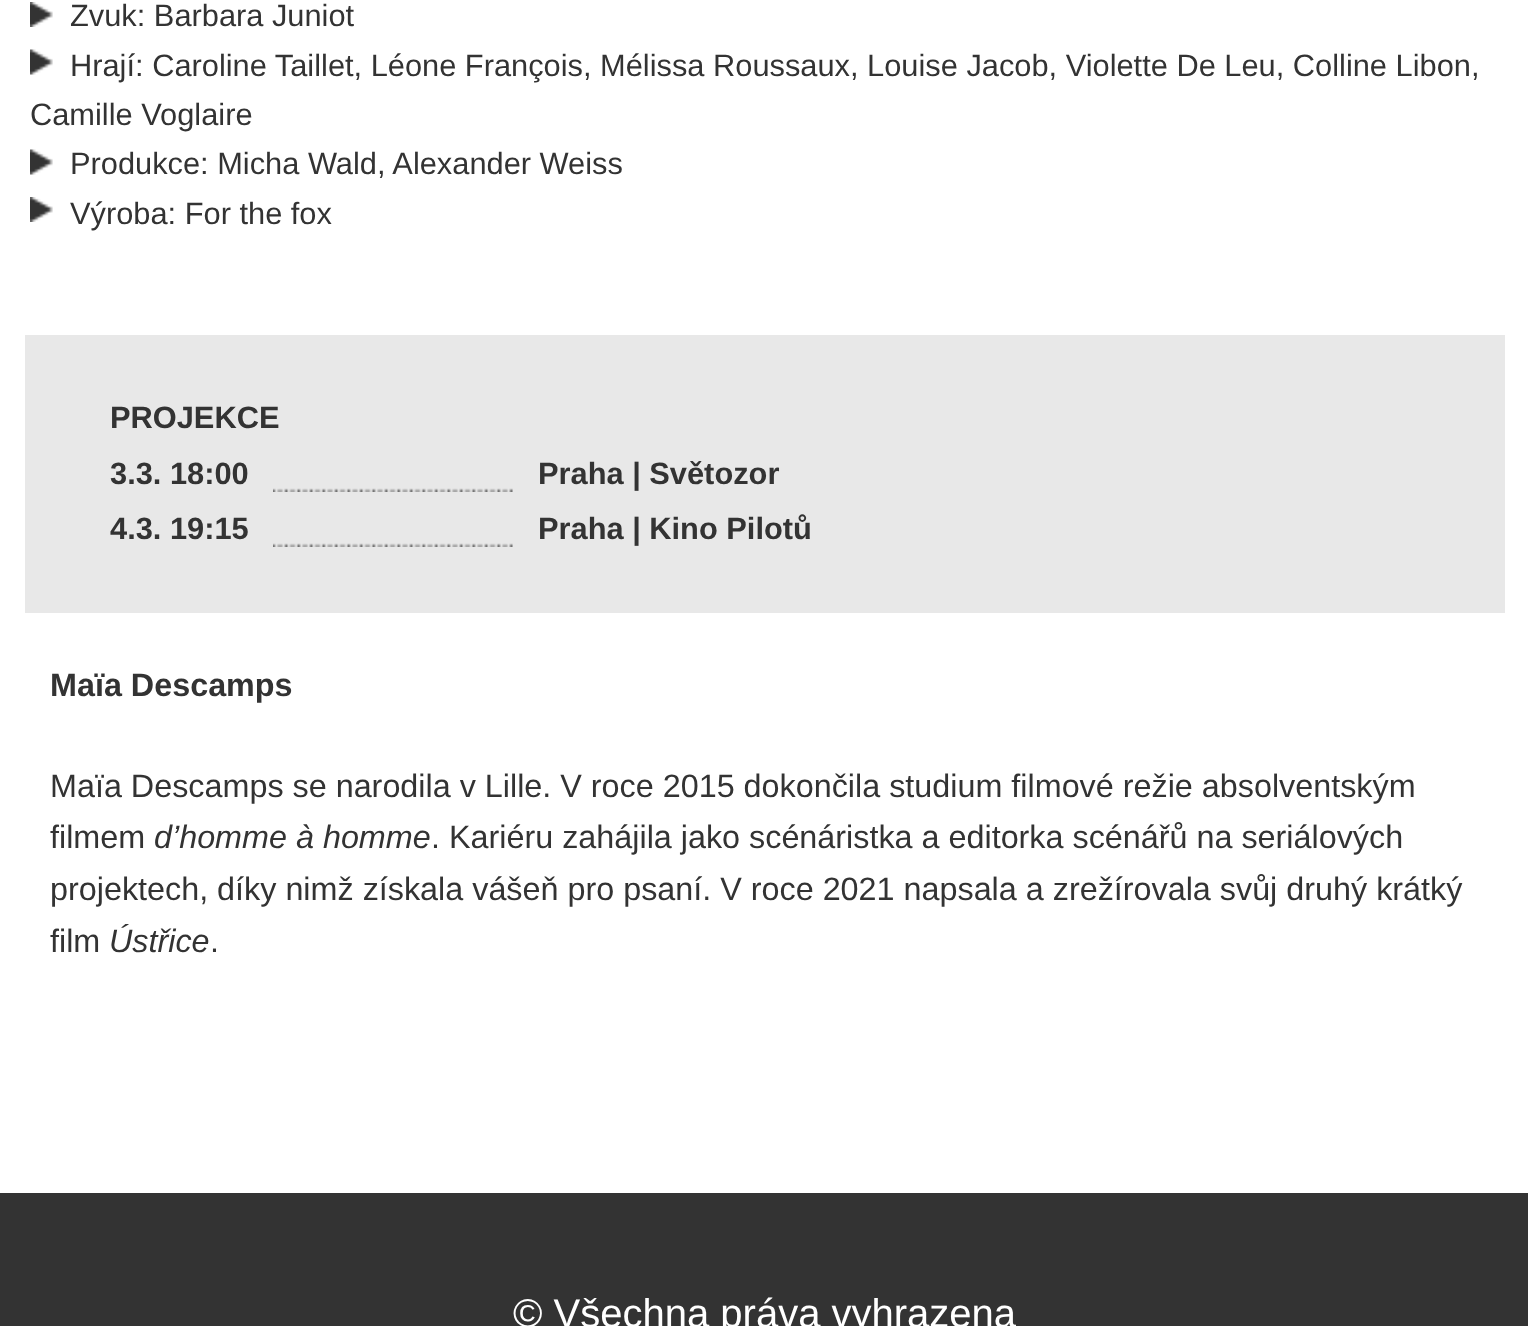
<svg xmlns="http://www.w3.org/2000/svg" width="1528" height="1326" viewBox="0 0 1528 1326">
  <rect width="100%" height="100%" fill="rgb(51,51,51)"/>
  <rect x="0" y="0" width="1528" height="1193" fill="rgb(255,255,255)"/>
  <image x="30" y="2" width="23" height="25" href="pic1.png"/>
  <text x="70" y="26" font-family="Liberation Sans" font-size="30.8" fill="rgb(51,51,51)">Zvuk: Barbara Juniot</text>
  <image x="30" y="49" width="23" height="26" href="pic2.png"/>
  <g font-family="Liberation Sans" font-size="30.8" fill="rgb(51,51,51)">
    <text x="70" y="76">Hrají: Caroline Taillet, Léone François, Mélissa Roussaux, Louise Jacob, Violette De Leu, Colline Libon,</text>
    <text x="30" y="125">Camille Voglaire</text>
  </g>
  <image x="30" y="149" width="23" height="26" href="pic2.png"/>
  <text x="70" y="174" font-family="Liberation Sans" font-size="30.8" fill="rgb(51,51,51)">Produkce: Micha Wald, Alexander Weiss</text>
  <image x="30" y="197" width="23" height="25" href="pic1.png"/>
  <text x="70" y="224" font-family="Liberation Sans" font-size="30.8" fill="rgb(51,51,51)">Výroba: For the fox</text>
  <rect x="25" y="335" width="1480" height="278" fill="rgb(232,232,232)"/>
  <text x="110" y="428" font-family="Liberation Sans" font-size="30.8" font-weight="bold" fill="rgb(51,51,51)">PROJEKCE</text>
  <image x="273" y="488" width="240" height="4" href="pic3.png"/>
  <g font-family="Liberation Sans" font-size="30.8" font-weight="bold" fill="rgb(51,51,51)">
    <text x="110" y="484">3.3. 18:00</text>
    <text x="538" y="484">Praha | Světozor</text>
  </g>
  <image x="273" y="543" width="240" height="4" href="pic4.png"/>
  <g font-family="Liberation Sans" font-size="30.8" font-weight="bold" fill="rgb(51,51,51)">
    <text x="110" y="539">4.3. 19:15</text>
    <text x="538" y="539">Praha | Kino Pilotů</text>
  </g>
  <text x="50" y="696" font-family="Liberation Sans" font-size="32.35" font-weight="bold" fill="rgb(51,51,51)">Maïa Descamps</text>
  <g font-family="Liberation Sans" font-size="32.35" fill="rgb(51,51,51)">
    <text>
      <tspan x="50" y="797">Maïa Descamps se narodila v Lille. V roce 2015 dokončila studium filmové režie absolventským</tspan>
      <tspan x="50" y="848">filmem</tspan>
    </text>
  </g>
  <text x="154" y="848" font-family="Liberation Sans" font-size="32.35" font-style="italic" fill="rgb(51,51,51)">d’homme à homme</text>
  <g font-family="Liberation Sans" font-size="32.35" fill="rgb(51,51,51)">
    <text x="431" y="848">. Kariéru zahájila jako scénáristka a editorka scénářů na seriálových</text>
    <text>
      <tspan x="50" y="900">projektech, díky nimž získala vášeň pro psaní. V roce 2021 napsala a zrežírovala svůj druhý krátký</tspan>
      <tspan x="50" y="952">film</tspan>
    </text>
  </g>
  <text x="109" y="952" font-family="Liberation Sans" font-size="32.35" font-style="italic" fill="rgb(51,51,51)">Ústřice</text>
  <text x="210" y="952" font-family="Liberation Sans" font-size="32.35" fill="rgb(51,51,51)">.</text>
  <text x="513" y="1327" font-family="Liberation Sans" font-size="40" fill="rgb(255,255,255)">© Všechna práva vyhrazena</text>
</svg>
